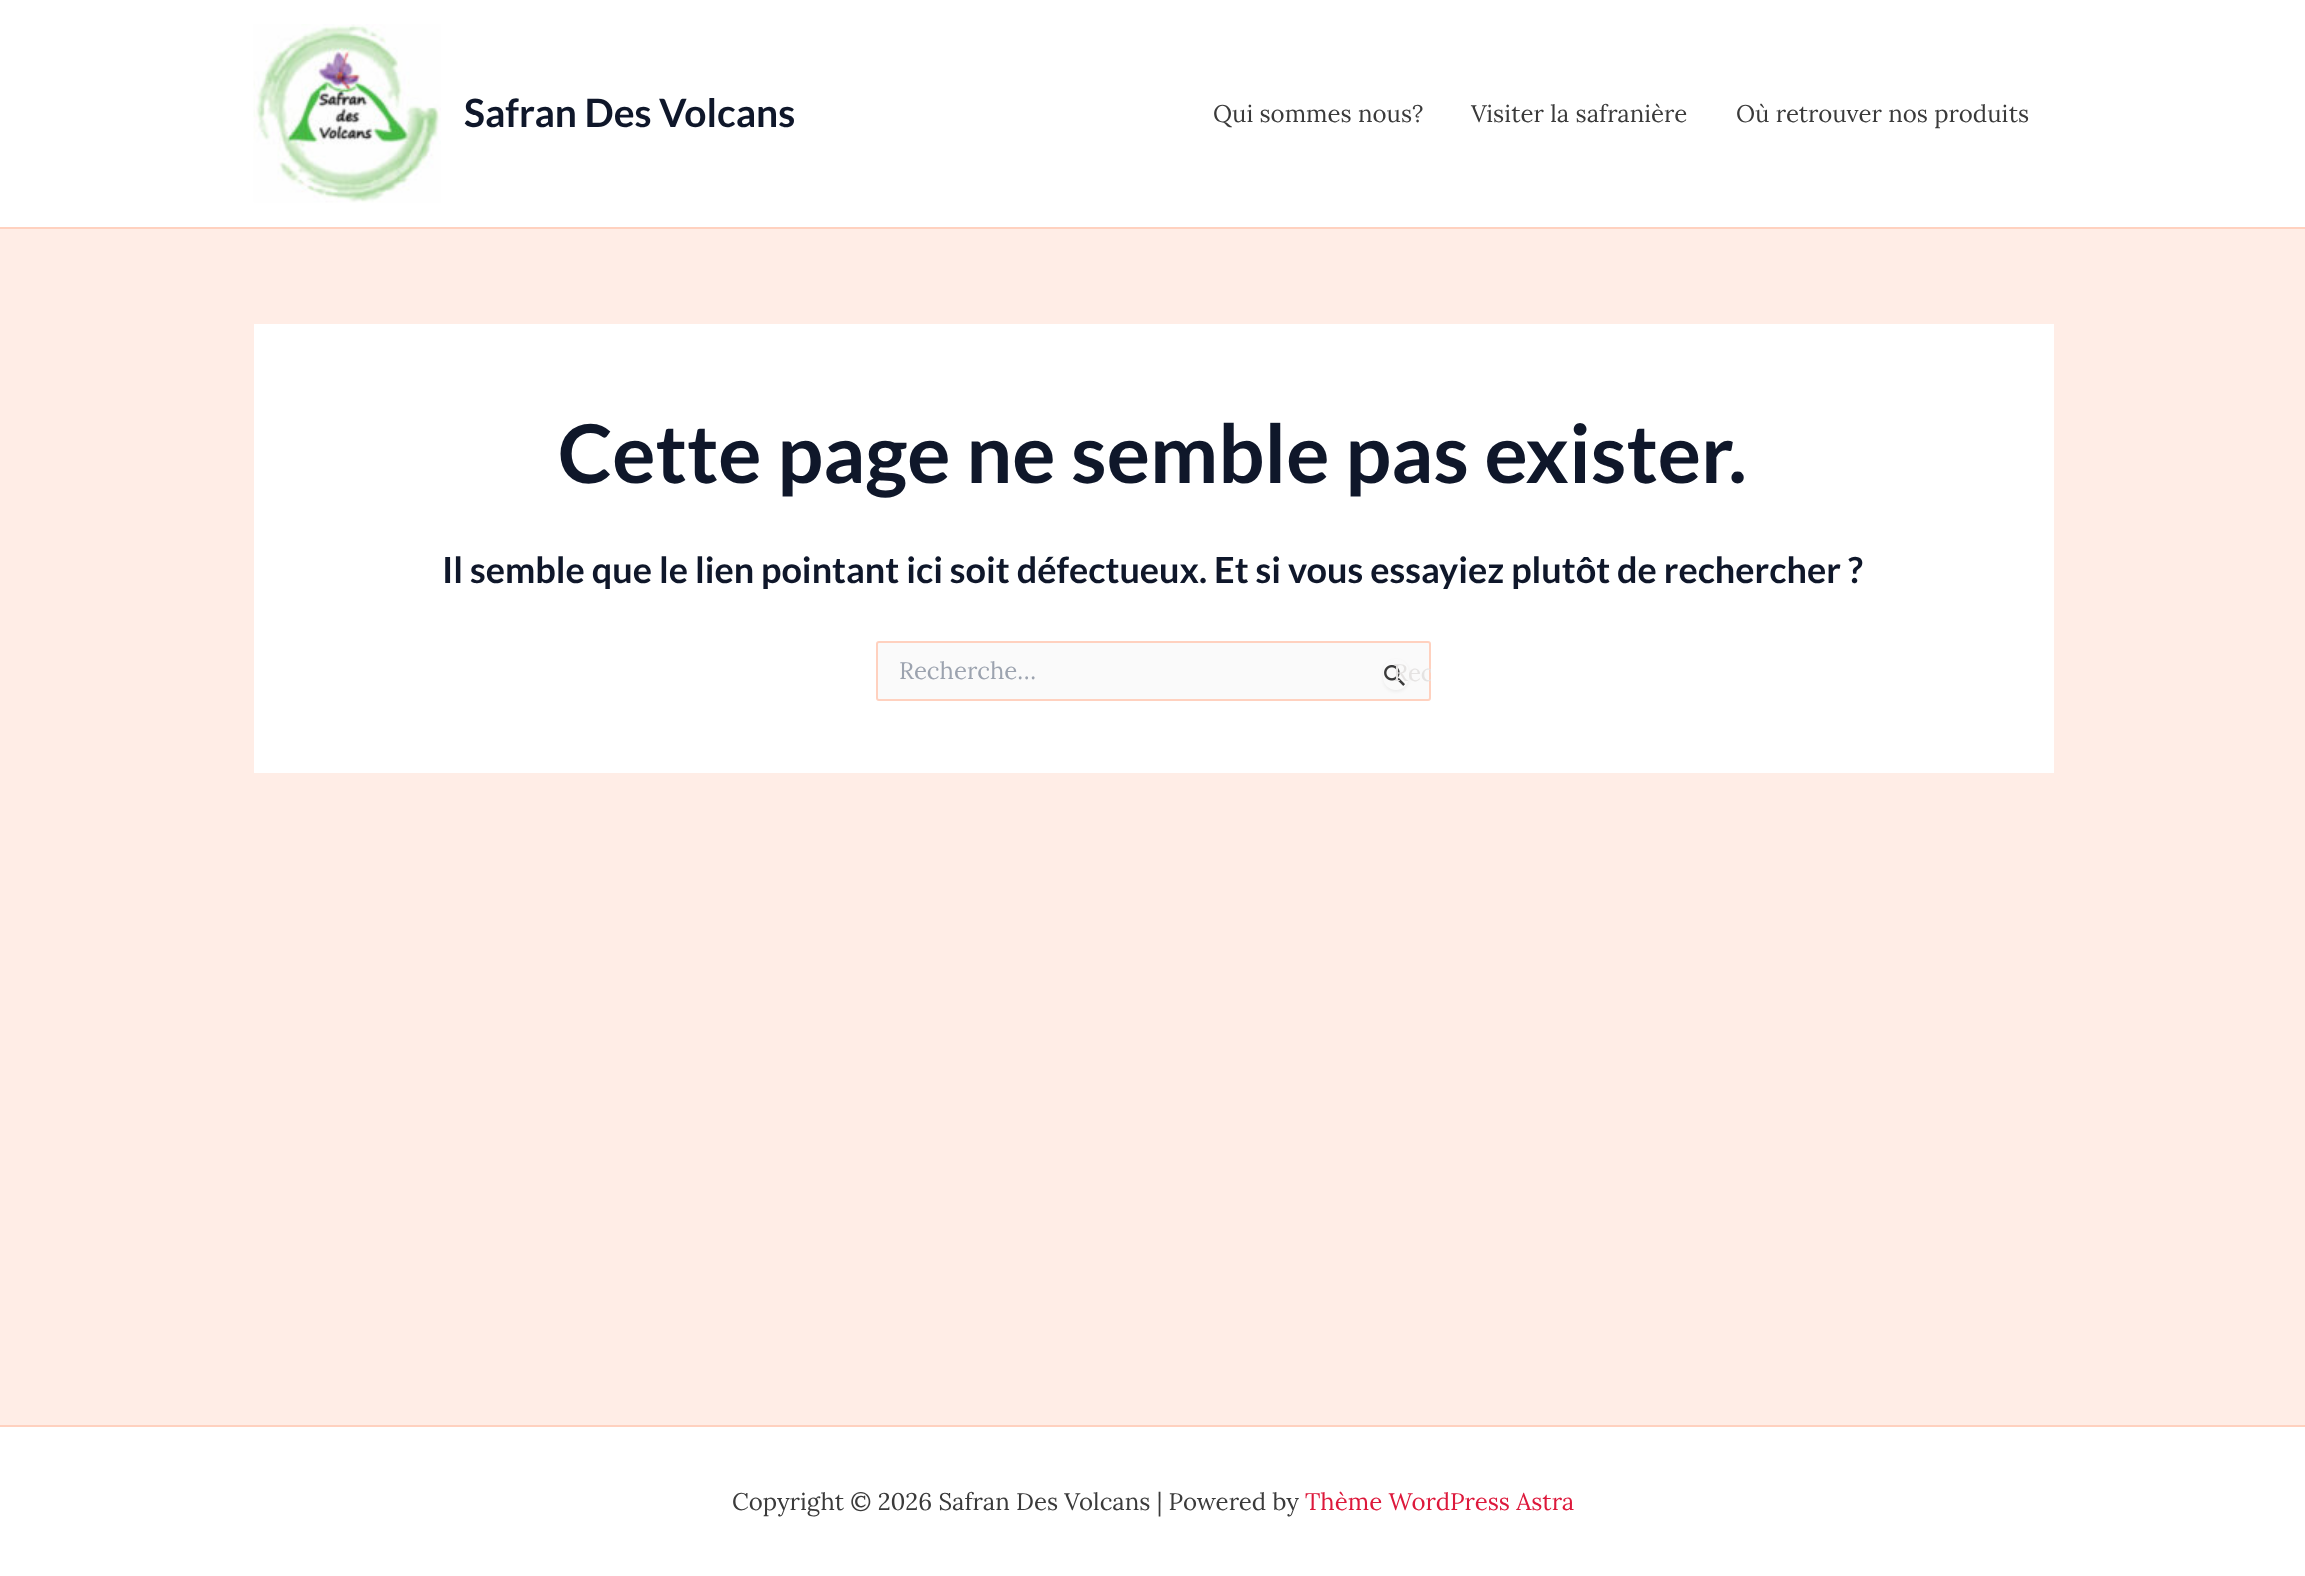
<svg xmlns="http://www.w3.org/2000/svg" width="2305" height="1576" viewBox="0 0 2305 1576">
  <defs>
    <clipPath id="clip1"><path d="M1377 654H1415V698H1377ZM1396 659C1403 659 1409 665 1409 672V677C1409 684 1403 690 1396 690C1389 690 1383 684 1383 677V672C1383 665 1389 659 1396 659Z" clip-rule="evenodd"/></clipPath>
    <clipPath id="clip2"><rect x="1364" y="641" width="67" height="63" rx="3"/></clipPath>
  </defs>
  <rect width="100%" height="100%" fill="rgb(255,237,230)"/>
  <rect x="0" y="0" width="2305" height="227" fill="rgb(255,255,255)"/>
  <rect x="0" y="227" width="2305" height="2" fill="rgb(255,209,191)"/>
  <image x="253" y="24" width="188" height="179" href="pic1.png"/>
  <text x="464" y="127" font-family="Lato" font-size="39" font-weight="bold" fill="rgb(15,23,42)">Safran Des Volcans</text>
  <g font-family="Lora" font-size="24" fill="rgb(58,58,58)">
    <text x="1213" y="122">Qui sommes nous?</text>
    <text x="1471" y="122">Visiter la safranière</text>
    <text x="1736" y="122">Où retrouver nos produits</text>
  </g>
  <rect x="254" y="324" width="1800" height="449" fill="rgb(255,255,255)"/>
  <text x="558" y="483" font-family="Lato" font-size="81" font-weight="bold" fill="rgb(15,23,42)">Cette page ne semble pas exister.</text>
  <text x="442" y="583" font-family="Lato" font-size="36" font-weight="bold" fill="rgb(15,23,42)">Il semble que le lien pointant ici soit défectueux. Et si vous essayiez plutôt de rechercher ?</text>
  <rect x="877" y="642" width="553" height="58" rx="2" fill="rgb(250,250,250)" stroke="rgb(255,209,191)" stroke-width="2"/>
  <text x="899" y="679" font-family="Lora" font-size="24" fill="rgb(156,163,175)">Recherche…</text>
  <g clip-path="url(#clip1)">
    <rect x="1383" y="660" width="26" height="32" rx="13" fill="rgba(0,0,0,0.05)" filter="blur(1.5px)"/>
  </g>
  <image x="1384" y="665" width="21" height="21" href="pic2.png"/>
  <g clip-path="url(#clip2)">
    <text x="1393" y="681" font-family="Lora" font-size="24" fill="rgb(229,227,226)">Rec</text>
  </g>
  <rect x="0" y="1427" width="2305" height="149" fill="rgb(255,255,255)"/>
  <rect x="0" y="1425" width="2305" height="2" fill="rgb(255,209,191)"/>
  <text x="732" y="1510" font-family="Lora" font-size="24" fill="rgb(58,58,58)">Copyright © 2026 Safran Des Volcans | Powered by</text>
  <text x="1305" y="1510" font-family="Lora" font-size="24" fill="rgb(221,24,59)">Thème WordPress Astra</text>
</svg>
